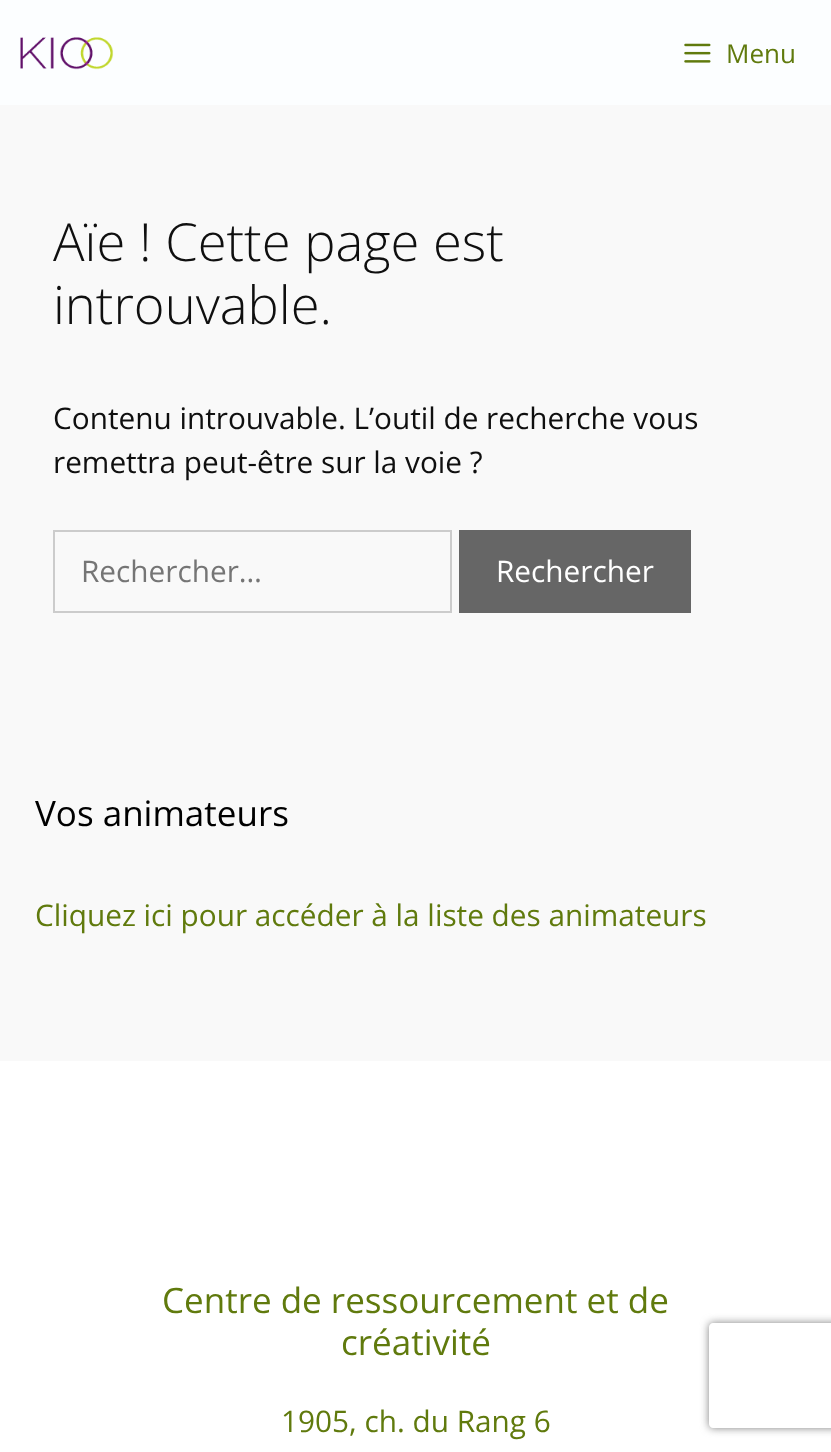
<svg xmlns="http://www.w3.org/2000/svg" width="831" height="1452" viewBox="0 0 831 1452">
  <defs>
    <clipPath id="clip1"><path d="M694 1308H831V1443H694ZM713 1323H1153C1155 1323 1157 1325 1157 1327V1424C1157 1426 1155 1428 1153 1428H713C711 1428 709 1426 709 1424V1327C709 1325 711 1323 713 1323Z" clip-rule="evenodd"/></clipPath>
  </defs>
  <rect width="100%" height="100%" fill="rgb(249,249,249)"/>
  <rect x="0" y="0" width="831" height="105" fill="rgb(252,254,255)"/>
  <image x="20" y="37" width="94" height="33" href="pic1.png"/>
  <image x="684" y="43" width="27" height="20" href="pic2.png"/>
  <text x="726" y="63" font-family="Open Sans" font-size="26" fill="rgb(96,122,13)">Menu</text>
  <g font-family="Open Sans" font-size="52.5" font-weight="300" fill="rgb(15,15,15)">
    <text>
      <tspan x="53" y="261">Aïe ! Cette page est</tspan>
      <tspan x="53" y="324">introuvable.</tspan>
    </text>
  </g>
  <g font-family="Open Sans" font-size="29.75" fill="rgb(15,15,15)">
    <text>
      <tspan x="53" y="429">Contenu introuvable. L’outil de recherche vous</tspan>
      <tspan x="53" y="473">remettra peut-être sur la voie ?</tspan>
    </text>
  </g>
  <rect x="54" y="531" width="397" height="81" fill="none" stroke="rgb(204,204,204)" stroke-width="2"/>
  <text x="81" y="582" font-family="Open Sans" font-size="29.75" fill="rgb(117,117,117)">Rechercher…</text>
  <rect x="459" y="530" width="232" height="83" fill="rgb(102,102,102)"/>
  <text x="496" y="582" font-family="Open Sans" font-size="29.75" fill="rgb(255,255,255)">Rechercher</text>
  <text x="35" y="826" font-family="Open Sans" font-size="35" fill="rgb(0,0,0)">Vos animateurs</text>
  <text x="35" y="926" font-family="Open Sans" font-size="29.75" fill="rgb(96,122,13)">Cliquez ici pour accéder à la liste des animateurs</text>
  <rect x="0" y="1061" width="831" height="391" fill="rgb(255,255,255)"/>
  <g font-family="Open Sans" font-size="35" fill="rgb(96,122,13)">
    <text x="162" y="1313">Centre de ressourcement et de</text>
    <text x="341" y="1355">créativité</text>
  </g>
  <text x="281" y="1432" font-family="Open Sans" font-size="29.75" fill="rgb(96,122,13)">1905, ch. du Rang 6</text>
  <g clip-path="url(#clip1)">
    <rect x="709" y="1323" width="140" height="105" rx="4" fill="rgb(128,128,128)" filter="blur(4.5px)"/>
  </g>
</svg>
